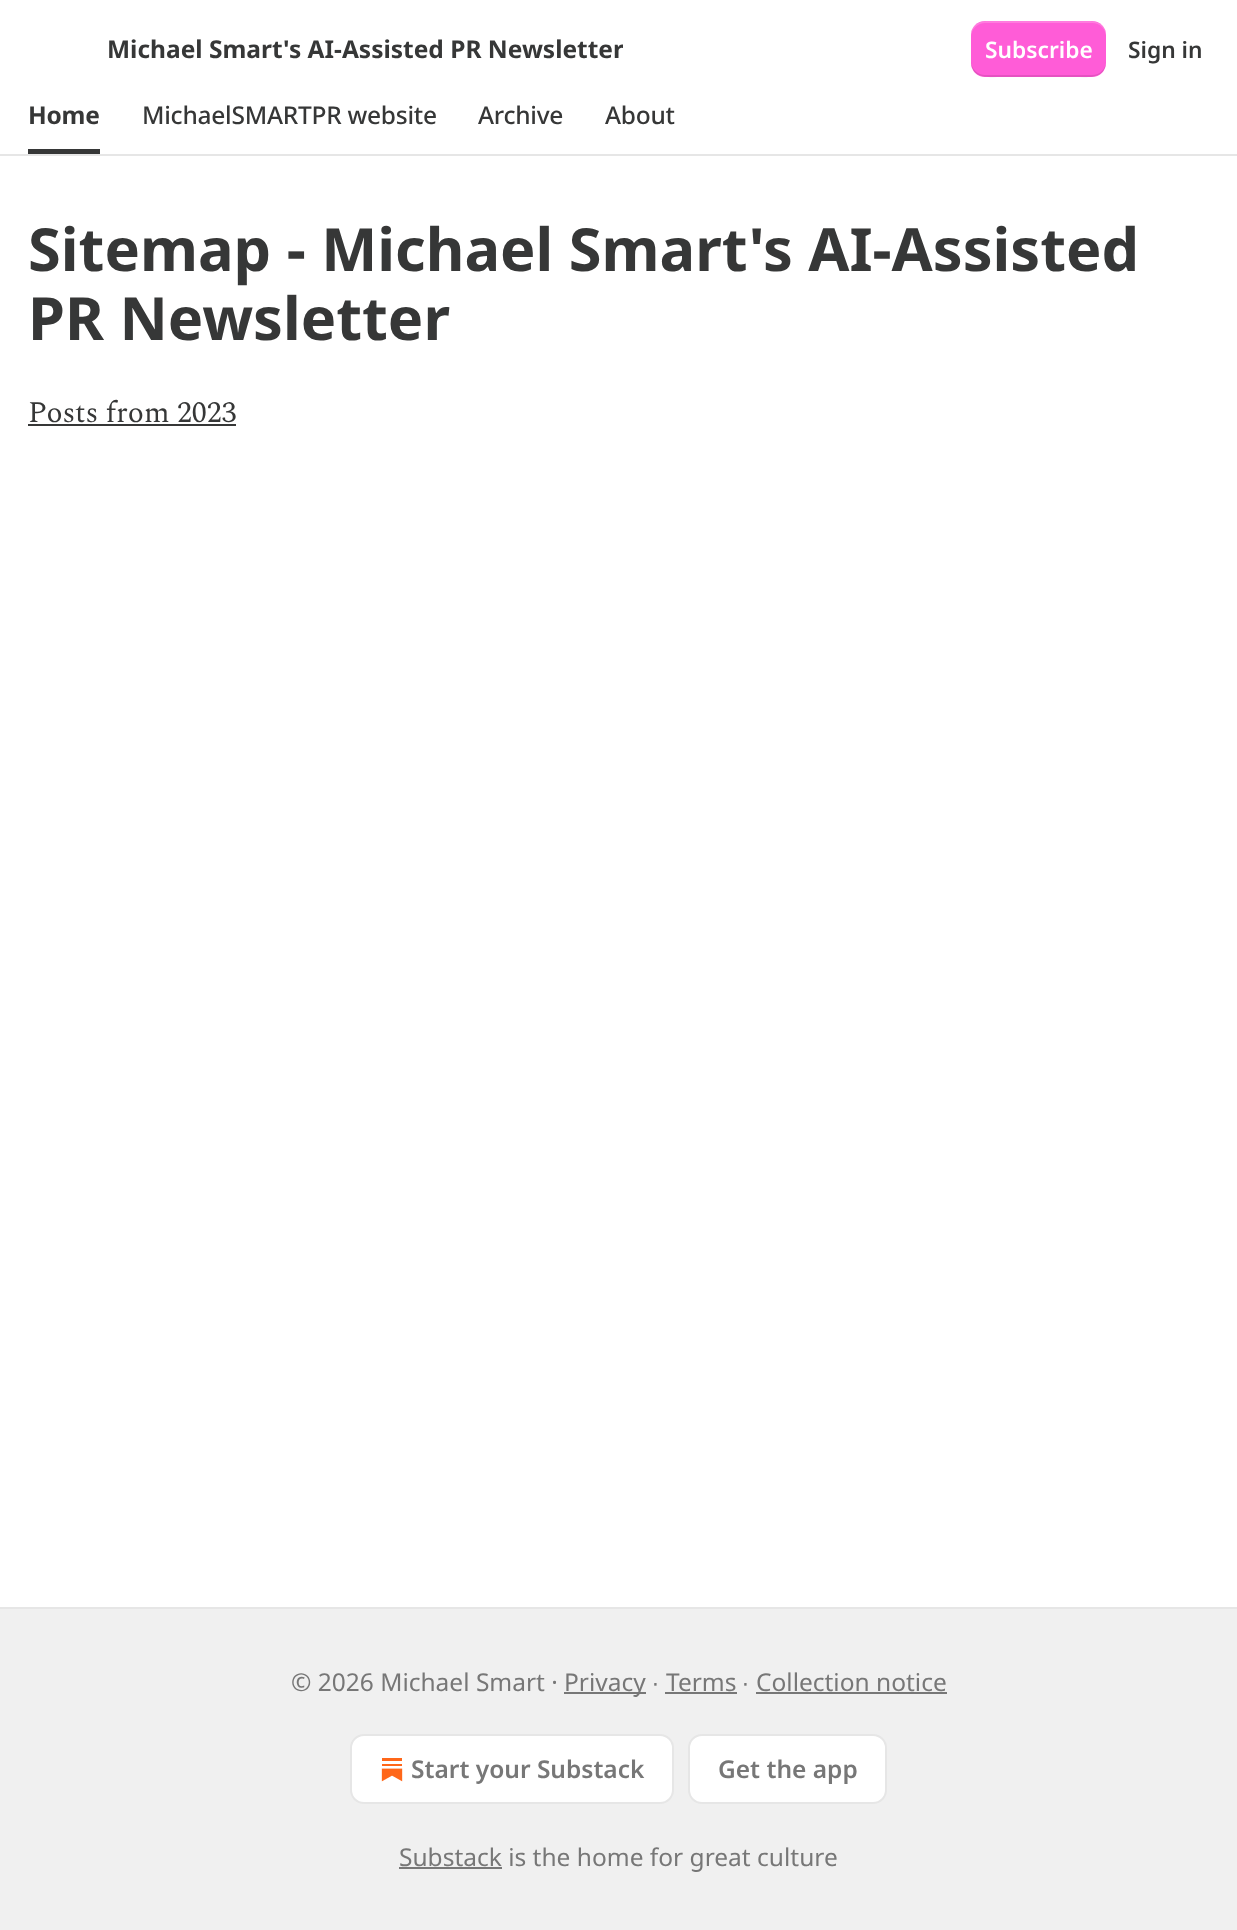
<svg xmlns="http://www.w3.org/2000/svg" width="1237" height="1930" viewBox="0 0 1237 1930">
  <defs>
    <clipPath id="clip1"><rect x="107" y="21" width="516" height="56"/></clipPath>
  </defs>
  <rect width="100%" height="100%" fill="rgb(255,255,255)"/>
  <g clip-path="url(#clip1)">
    <text x="107" y="58" font-family="Noto Sans" font-size="24.5" font-weight="bold" fill="rgb(54,55,55)">Michael Smart's AI-Assisted PR Newsletter</text>
  </g>
  <rect x="971" y="21" width="135" height="56" rx="14" fill="rgb(255,92,215)"/>
  <path d="M971 61C971 80 989 77 1003 77H1074C1088 77 1106 80 1106 61C1106 69 1100 75 1092 75H985C978 75 971 69 971 61Z" fill="rgba(0,0,0,0.1)"/>
  <path d="M985 23H1092C1100 23 1106 29 1106 37C1106 18 1088 21 1074 21H1003C989 21 971 18 971 37C971 29 978 23 985 23Z" fill="rgba(255,255,255,0.2)"/>
  <text x="985" y="58" font-family="Noto Sans" font-size="22.75" font-weight="600" fill="rgb(255,255,255)">Subscribe</text>
  <text x="1128" y="58" font-family="Noto Sans" font-size="22.75" font-weight="600" fill="rgb(54,55,55)">Sign in</text>
  <rect x="0" y="154" width="1237" height="2" fill="rgb(230,230,230)"/>
  <rect x="28" y="149" width="72" height="5" fill="rgb(54,55,55)"/>
  <text x="28" y="124" font-family="Noto Sans" font-size="24.5" font-weight="bold" letter-spacing="-0.25" fill="rgb(54,55,55)">Home</text>
  <g font-family="Noto Sans" font-size="24.5" font-weight="500" letter-spacing="-0.25" fill="rgb(54,55,55)">
    <text x="142" y="124">MichaelSMARTPR website</text>
    <text x="478" y="124">Archive</text>
    <text x="605" y="124">About</text>
  </g>
  <g font-family="Noto Sans" font-size="59.5" font-weight="bold" fill="rgb(54,55,55)">
    <text>
      <tspan x="28" y="271">Sitemap - Michael Smart's AI-Assisted</tspan>
      <tspan x="28" y="340">PR Newsletter</tspan>
    </text>
  </g>
  <text x="28" y="422" font-family="Spectral" font-size="29.75" fill="rgb(54,55,55)">Posts from 2023</text>
  <rect x="28" y="424" width="208" height="2" fill="rgb(54,55,55)"/>
  <rect x="0" y="1609" width="1237" height="321" fill="rgb(240,240,240)"/>
  <rect x="0" y="1607" width="1237" height="2" fill="rgb(230,230,230)"/>
  <text x="291" y="1691" font-family="Noto Sans" font-size="24.5" fill="rgb(119,119,119)">© 2026 Michael Smart ·</text>
  <rect x="564" y="1692" width="82" height="2" fill="rgb(119,119,119)"/>
  <text x="564" y="1691" font-family="Noto Sans" font-size="24.5" fill="rgb(119,119,119)">Privacy</text>
  <text x="652" y="1691" font-family="Liberation Sans" font-size="24.5" fill="rgb(119,119,119)">∙</text>
  <text x="666" y="1691" font-family="Noto Sans" font-size="24.5" fill="rgb(119,119,119)">Terms</text>
  <rect x="665" y="1692" width="72" height="2" fill="rgb(119,119,119)"/>
  <text x="742" y="1691" font-family="Liberation Sans" font-size="24.5" fill="rgb(119,119,119)">∙</text>
  <text x="756" y="1691" font-family="Noto Sans" font-size="24.5" fill="rgb(119,119,119)">Collection notice</text>
  <rect x="756" y="1692" width="191" height="2" fill="rgb(119,119,119)"/>
  <rect x="351" y="1735" width="322" height="68" rx="13" fill="rgb(255,255,255)" stroke="rgb(230,230,230)" stroke-width="2"/>
  <image x="381" y="1758" width="22" height="24" href="pic1.png"/>
  <text x="411" y="1778" font-family="Noto Sans" font-size="24.5" font-weight="600" fill="rgb(119,119,119)">Start your Substack</text>
  <rect x="689" y="1735" width="197" height="68" rx="13" fill="rgb(255,255,255)" stroke="rgb(230,230,230)" stroke-width="2"/>
  <text x="718" y="1778" font-family="Noto Sans" font-size="24.5" font-weight="600" fill="rgb(119,119,119)">Get the app</text>
  <rect x="399" y="1867" width="103" height="2" fill="rgb(119,119,119)"/>
  <text x="399" y="1866" font-family="Noto Sans" font-size="24.5" fill="rgb(119,119,119)">Substack is the home for great culture</text>
</svg>
